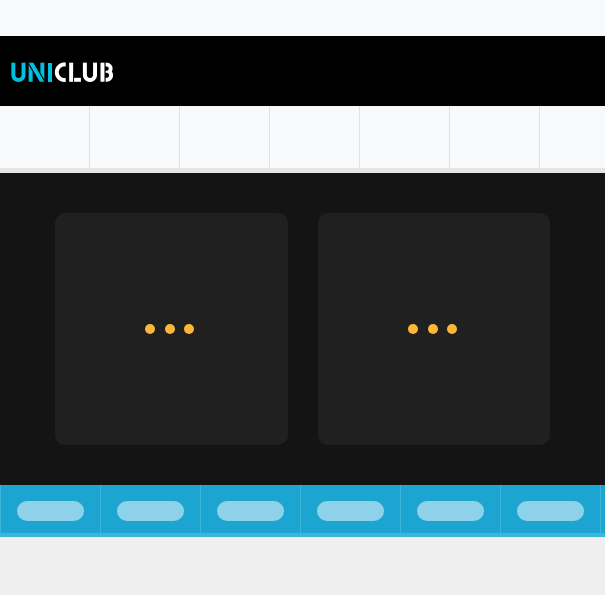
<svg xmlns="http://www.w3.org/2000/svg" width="605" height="595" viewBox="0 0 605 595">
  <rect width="100%" height="100%" fill="rgb(239,239,240)"/>
  <rect x="0" y="0" width="605" height="36" fill="rgb(248,249,250)"/>
  <rect x="0" y="36" width="605" height="70" fill="rgb(0,0,0)"/>
  <image x="11" y="62" width="102" height="20" href="pic1.png"/>
  <rect x="0" y="106" width="605" height="67" fill="rgb(248,249,250)"/>
  <rect x="0" y="168" width="89" height="1" fill="rgb(229,229,229)"/>
  <path d="M90 106V173L89 169V106Z" fill="rgb(222,226,230)"/>
  <path d="M90 173H0V169H89Z" fill="rgb(229,229,229)"/>
  <rect x="90" y="168" width="89" height="1" fill="rgb(229,229,229)"/>
  <path d="M180 106V173L179 169V106Z" fill="rgb(222,226,230)"/>
  <path d="M180 173H90V169H179Z" fill="rgb(229,229,229)"/>
  <rect x="180" y="168" width="89" height="1" fill="rgb(229,229,229)"/>
  <path d="M270 106V173L269 169V106Z" fill="rgb(222,226,230)"/>
  <path d="M270 173H180V169H269Z" fill="rgb(229,229,229)"/>
  <rect x="270" y="168" width="89" height="1" fill="rgb(229,229,229)"/>
  <path d="M360 106V173L359 169V106Z" fill="rgb(222,226,230)"/>
  <path d="M360 173H270V169H359Z" fill="rgb(229,229,229)"/>
  <rect x="360" y="168" width="89" height="1" fill="rgb(229,229,229)"/>
  <path d="M450 106V173L449 169V106Z" fill="rgb(222,226,230)"/>
  <path d="M450 173H360V169H449Z" fill="rgb(229,229,229)"/>
  <rect x="450" y="168" width="89" height="1" fill="rgb(229,229,229)"/>
  <path d="M540 106V173L539 169V106Z" fill="rgb(222,226,230)"/>
  <path d="M540 173H450V169H539Z" fill="rgb(229,229,229)"/>
  <rect x="540" y="168" width="65" height="1" fill="rgb(229,229,229)"/>
  <path d="M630 173H540V169H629Z" fill="rgb(229,229,229)"/>
  <rect x="0" y="173" width="605" height="312" fill="rgb(20,20,20)"/>
  <rect x="55" y="213" width="233" height="232" rx="10" fill="rgb(32,32,32)"/>
  <circle cx="150" cy="329" r="5" fill="rgb(253,183,55)"/>
  <circle cx="170" cy="329" r="5" fill="rgb(253,183,55)"/>
  <circle cx="189" cy="329" r="5" fill="rgb(253,183,55)"/>
  <rect x="318" y="213" width="232" height="232" rx="10" fill="rgb(32,32,32)"/>
  <circle cx="413" cy="329" r="5" fill="rgb(253,183,55)"/>
  <circle cx="433" cy="329" r="5" fill="rgb(253,183,55)"/>
  <circle cx="452" cy="329" r="5" fill="rgb(253,183,55)"/>
  <rect x="1" y="485" width="604" height="48" fill="rgb(29,165,210)"/>
  <rect x="0" y="533" width="605" height="4" fill="rgb(62,182,218)"/>
  <rect x="0" y="485" width="1" height="52" fill="rgb(62,182,218)"/>
  <rect x="17" y="501" width="67" height="20" rx="10" fill="rgb(142,210,233)"/>
  <rect x="100" y="485" width="1" height="52" fill="rgb(62,182,218)"/>
  <rect x="117" y="501" width="67" height="20" rx="10" fill="rgb(142,210,233)"/>
  <rect x="200" y="485" width="1" height="52" fill="rgb(62,182,218)"/>
  <rect x="217" y="501" width="67" height="20" rx="10" fill="rgb(142,210,233)"/>
  <rect x="300" y="485" width="1" height="52" fill="rgb(62,182,218)"/>
  <rect x="317" y="501" width="67" height="20" rx="10" fill="rgb(142,210,233)"/>
  <rect x="400" y="485" width="1" height="52" fill="rgb(62,182,218)"/>
  <rect x="417" y="501" width="67" height="20" rx="10" fill="rgb(142,210,233)"/>
  <rect x="500" y="485" width="1" height="52" fill="rgb(62,182,218)"/>
  <rect x="517" y="501" width="67" height="20" rx="10" fill="rgb(142,210,233)"/>
  <rect x="600" y="485" width="1" height="52" fill="rgb(62,182,218)"/>
</svg>
